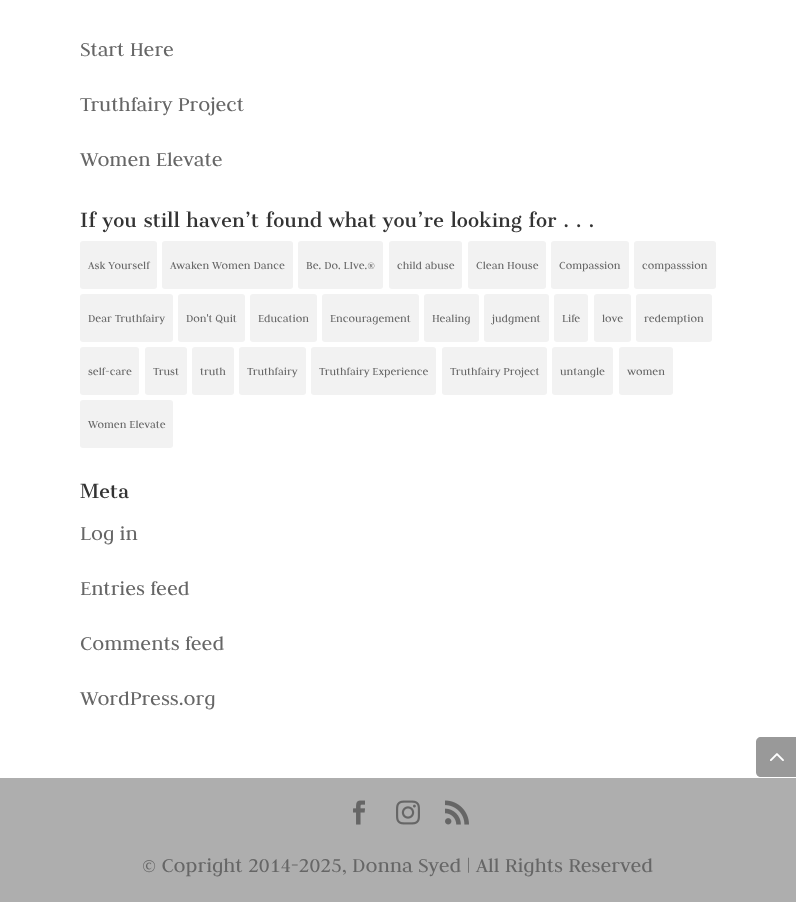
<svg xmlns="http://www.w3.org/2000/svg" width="796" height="902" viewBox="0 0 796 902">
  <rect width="100%" height="100%" fill="rgb(255,255,255)"/>
  <g font-family="Judson" font-size="22" fill="rgb(102,102,102)">
    <text x="80" y="56">Start Here</text>
    <text x="80" y="111">Truthfairy Project</text>
    <text x="80" y="166">Women Elevate</text>
  </g>
  <text x="80" y="227" font-family="Cantata One" font-size="19" fill="rgb(51,51,51)">If you still haven’t found what you’re looking for . . .</text>
  <rect x="80" y="241" width="77" height="48" rx="3" fill="rgb(242,242,242)"/>
  <text x="88" y="269" font-family="Judson" font-size="12" fill="rgb(102,102,102)">Ask Yourself</text>
  <rect x="162" y="241" width="131" height="48" rx="3" fill="rgb(242,242,242)"/>
  <text x="170" y="269" font-family="Judson" font-size="12" fill="rgb(102,102,102)">Awaken Women Dance</text>
  <rect x="298" y="241" width="85" height="48" rx="3" fill="rgb(242,242,242)"/>
  <text x="306" y="269" font-family="Judson" font-size="12" fill="rgb(102,102,102)">Be. Do. LIve.®</text>
  <rect x="389" y="241" width="73" height="48" rx="3" fill="rgb(242,242,242)"/>
  <text x="397" y="269" font-family="Judson" font-size="12" fill="rgb(102,102,102)">child abuse</text>
  <rect x="468" y="241" width="78" height="48" rx="3" fill="rgb(242,242,242)"/>
  <text x="476" y="269" font-family="Judson" font-size="12" fill="rgb(102,102,102)">Clean House</text>
  <rect x="551" y="241" width="78" height="48" rx="3" fill="rgb(242,242,242)"/>
  <text x="559" y="269" font-family="Judson" font-size="12" fill="rgb(102,102,102)">Compassion</text>
  <rect x="634" y="241" width="82" height="48" rx="3" fill="rgb(242,242,242)"/>
  <text x="642" y="269" font-family="Judson" font-size="12" fill="rgb(102,102,102)">compasssion</text>
  <rect x="80" y="294" width="93" height="48" rx="3" fill="rgb(242,242,242)"/>
  <text x="88" y="322" font-family="Judson" font-size="12" fill="rgb(102,102,102)">Dear Truthfairy</text>
  <rect x="178" y="294" width="67" height="48" rx="3" fill="rgb(242,242,242)"/>
  <text x="186" y="322" font-family="Judson" font-size="12" fill="rgb(102,102,102)">Don't Quit</text>
  <rect x="250" y="294" width="67" height="48" rx="3" fill="rgb(242,242,242)"/>
  <text x="258" y="322" font-family="Judson" font-size="12" fill="rgb(102,102,102)">Education</text>
  <rect x="322" y="294" width="97" height="48" rx="3" fill="rgb(242,242,242)"/>
  <text x="330" y="322" font-family="Judson" font-size="12" fill="rgb(102,102,102)">Encouragement</text>
  <rect x="424" y="294" width="55" height="48" rx="3" fill="rgb(242,242,242)"/>
  <text x="432" y="322" font-family="Judson" font-size="12" fill="rgb(102,102,102)">Healing</text>
  <rect x="484" y="294" width="65" height="48" rx="3" fill="rgb(242,242,242)"/>
  <text x="492" y="322" font-family="Judson" font-size="12" fill="rgb(102,102,102)">judgment</text>
  <rect x="554" y="294" width="34" height="48" rx="3" fill="rgb(242,242,242)"/>
  <text x="562" y="322" font-family="Judson" font-size="12" fill="rgb(102,102,102)">Life</text>
  <rect x="594" y="294" width="37" height="48" rx="3" fill="rgb(242,242,242)"/>
  <text x="602" y="322" font-family="Judson" font-size="12" fill="rgb(102,102,102)">love</text>
  <rect x="636" y="294" width="76" height="48" rx="3" fill="rgb(242,242,242)"/>
  <text x="644" y="322" font-family="Judson" font-size="12" fill="rgb(102,102,102)">redemption</text>
  <rect x="80" y="347" width="59" height="48" rx="3" fill="rgb(242,242,242)"/>
  <text x="88" y="375" font-family="Judson" font-size="12" fill="rgb(102,102,102)">self-care</text>
  <rect x="145" y="347" width="42" height="48" rx="3" fill="rgb(242,242,242)"/>
  <text x="153" y="375" font-family="Judson" font-size="12" fill="rgb(102,102,102)">Trust</text>
  <rect x="192" y="347" width="42" height="48" rx="3" fill="rgb(242,242,242)"/>
  <text x="200" y="375" font-family="Judson" font-size="12" fill="rgb(102,102,102)">truth</text>
  <rect x="239" y="347" width="67" height="48" rx="3" fill="rgb(242,242,242)"/>
  <text x="247" y="375" font-family="Judson" font-size="12" fill="rgb(102,102,102)">Truthfairy</text>
  <rect x="311" y="347" width="125" height="48" rx="3" fill="rgb(242,242,242)"/>
  <text x="319" y="375" font-family="Judson" font-size="12" fill="rgb(102,102,102)">Truthfairy Experience</text>
  <rect x="442" y="347" width="105" height="48" rx="3" fill="rgb(242,242,242)"/>
  <text x="450" y="375" font-family="Judson" font-size="12" fill="rgb(102,102,102)">Truthfairy Project</text>
  <rect x="552" y="347" width="61" height="48" rx="3" fill="rgb(242,242,242)"/>
  <text x="560" y="375" font-family="Judson" font-size="12" fill="rgb(102,102,102)">untangle</text>
  <rect x="619" y="347" width="54" height="48" rx="3" fill="rgb(242,242,242)"/>
  <text x="627" y="375" font-family="Judson" font-size="12" fill="rgb(102,102,102)">women</text>
  <rect x="80" y="400" width="93" height="48" rx="3" fill="rgb(242,242,242)"/>
  <text x="88" y="428" font-family="Judson" font-size="12" fill="rgb(102,102,102)">Women Elevate</text>
  <text x="80" y="498" font-family="Cantata One" font-size="19" fill="rgb(51,51,51)">Meta</text>
  <g font-family="Judson" font-size="22" fill="rgb(102,102,102)">
    <text x="80" y="540">Log in</text>
    <text x="80" y="595">Entries feed</text>
    <text x="80" y="650">Comments feed</text>
    <text x="80" y="705">WordPress.org</text>
  </g>
  <path d="M761 737H796V777H761C758 777 756 775 756 772V742C756 739 758 737 761 737Z" fill="rgb(153,153,153)"/>
  <image x="770" y="753" width="14" height="8" href="pic1.png"/>
  <rect x="0" y="778" width="796" height="124" fill="rgb(174,174,174)"/>
  <image x="353" y="800" width="12" height="25" href="pic2.png"/>
  <image x="396" y="800" width="24" height="25" href="pic3.png"/>
  <image x="445" y="800" width="24" height="25" href="pic4.png"/>
  <text x="142" y="872" font-family="Judson" font-size="22" fill="rgb(102,102,102)">© Copright 2014-2025, Donna Syed | All Rights Reserved</text>
</svg>
